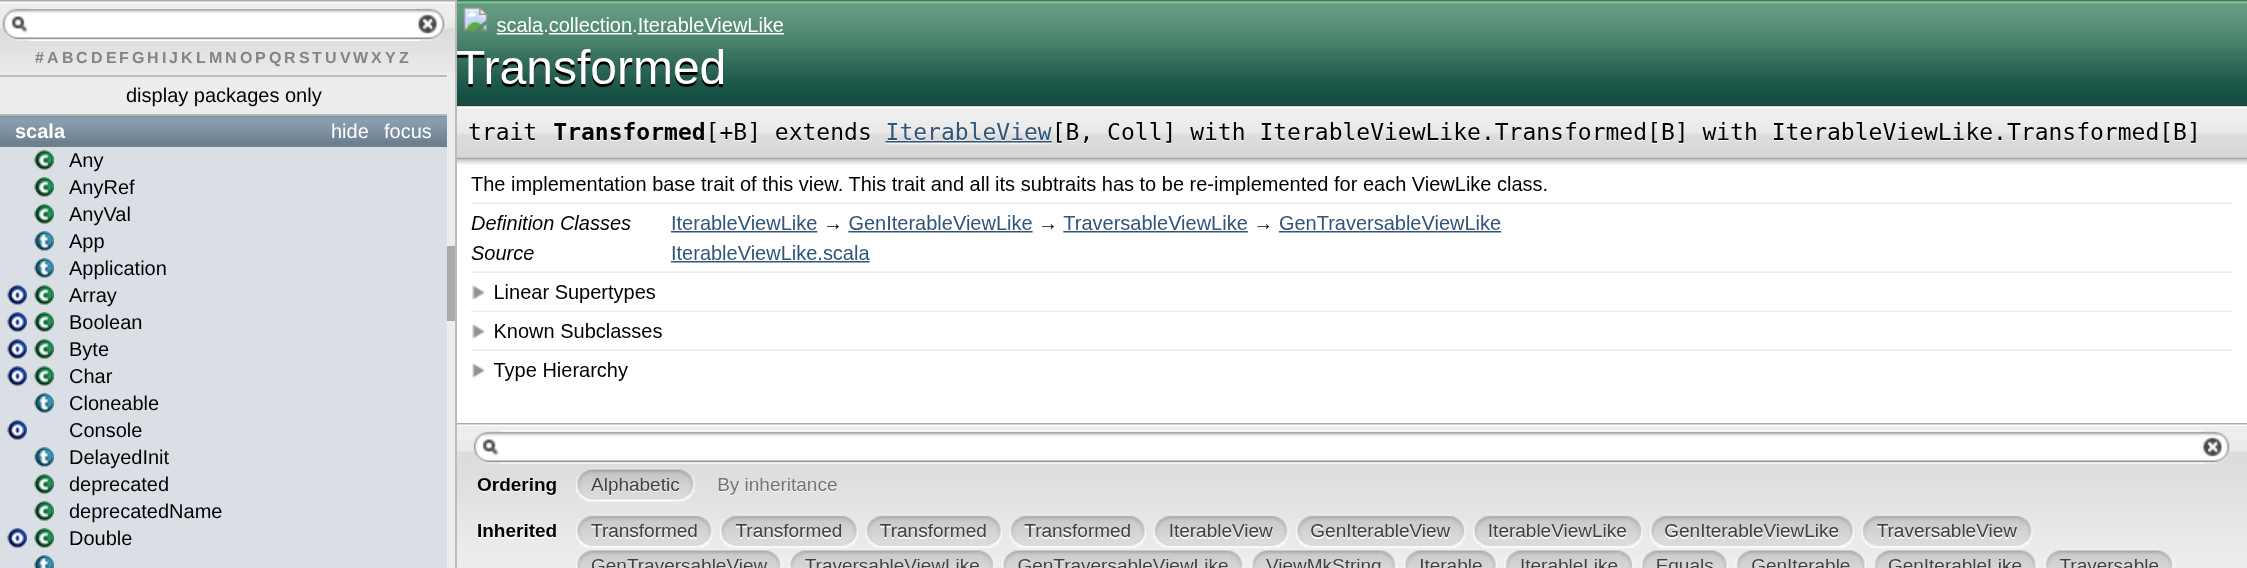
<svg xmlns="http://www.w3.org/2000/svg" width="2247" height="568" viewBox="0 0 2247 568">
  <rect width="100%" height="100%" fill="rgb(255,255,255)"/>
  <rect x="0" y="73" width="447" height="41" fill="rgb(237,237,238)"/>
  <image x="0" y="0" width="447" height="73" href="pic1.png"/>
  <rect x="0" y="114" width="447" height="2" fill="rgb(187,187,187)"/>
  <image x="2" y="8" width="28" height="33" href="pic2.png"/>
  <rect x="30" y="8" width="390" height="33" fill="rgb(255,255,255)"/>
  <image x="30" y="8" width="390" height="32" href="pic3.png"/>
  <image x="415" y="8" width="30" height="33" href="pic4.png"/>
  <rect x="0" y="75" width="447" height="2" fill="rgb(187,187,187)"/>
  <g font-family="Liberation Sans" font-size="16" font-weight="bold" fill="rgb(133,132,132)">
    <text x="35" y="63">#</text>
    <text x="47" y="63">A</text>
    <text x="62" y="63">B</text>
    <text x="76" y="63">C</text>
    <text x="91" y="63">D</text>
    <text x="106" y="63">E</text>
    <text x="119" y="63">F</text>
    <text x="132" y="63">G</text>
    <text x="147" y="63">H</text>
    <text x="162" y="63">I</text>
    <text x="169" y="63">J</text>
    <text x="181" y="63">K</text>
    <text x="196" y="63">L</text>
    <text x="209" y="63">M</text>
    <text x="225" y="63">N</text>
    <text x="240" y="63">O</text>
    <text x="255" y="63">P</text>
    <text x="269" y="63">Q</text>
    <text x="284" y="63">R</text>
    <text x="299" y="63">S</text>
    <text x="312" y="63">T</text>
    <text x="325" y="63">U</text>
    <text x="340" y="63">V</text>
    <text x="353" y="63">W</text>
    <text x="371" y="63">X</text>
    <text x="385" y="63">Y</text>
    <text x="399" y="63">Z</text>
  </g>
  <text x="126" y="102" font-family="Liberation Sans" font-size="20" fill="rgb(0,0,0)">display packages only</text>
  <rect x="0" y="141" width="447" height="6" fill="rgb(110,128,142)"/>
  <image x="0" y="115" width="447" height="26" href="pic5.png"/>
  <text x="15" y="138" font-family="Liberation Sans" font-size="20" font-weight="bold" fill="rgb(255,255,255)">scala</text>
  <g font-family="Liberation Sans" font-size="20" fill="rgb(255,255,255)">
    <text x="331" y="138">hide</text>
    <text x="384" y="138">focus</text>
  </g>
  <rect x="0" y="147" width="447" height="421" fill="rgb(218,223,230)"/>
  <image x="34" y="150" width="20" height="20" href="pic6.png"/>
  <text x="69" y="167" font-family="Liberation Sans" font-size="20" fill="rgb(0,0,0)">Any</text>
  <image x="34" y="177" width="20" height="20" href="pic6.png"/>
  <text x="69" y="194" font-family="Liberation Sans" font-size="20" fill="rgb(0,0,0)">AnyRef</text>
  <image x="34" y="204" width="20" height="20" href="pic6.png"/>
  <text x="69" y="221" font-family="Liberation Sans" font-size="20" fill="rgb(0,0,0)">AnyVal</text>
  <image x="34" y="231" width="20" height="20" href="pic7.png"/>
  <text x="69" y="248" font-family="Liberation Sans" font-size="20" fill="rgb(0,0,0)">App</text>
  <image x="34" y="258" width="20" height="20" href="pic7.png"/>
  <text x="69" y="275" font-family="Liberation Sans" font-size="20" fill="rgb(0,0,0)">Application</text>
  <image x="7" y="285" width="20" height="20" href="pic8.png"/>
  <image x="34" y="285" width="20" height="20" href="pic6.png"/>
  <text x="69" y="302" font-family="Liberation Sans" font-size="20" fill="rgb(0,0,0)">Array</text>
  <image x="7" y="312" width="20" height="20" href="pic8.png"/>
  <image x="34" y="312" width="20" height="20" href="pic6.png"/>
  <text x="69" y="329" font-family="Liberation Sans" font-size="20" fill="rgb(0,0,0)">Boolean</text>
  <image x="7" y="339" width="20" height="20" href="pic8.png"/>
  <image x="34" y="339" width="20" height="20" href="pic6.png"/>
  <text x="69" y="356" font-family="Liberation Sans" font-size="20" fill="rgb(0,0,0)">Byte</text>
  <image x="7" y="366" width="20" height="20" href="pic8.png"/>
  <image x="34" y="366" width="20" height="20" href="pic6.png"/>
  <text x="69" y="383" font-family="Liberation Sans" font-size="20" fill="rgb(0,0,0)">Char</text>
  <image x="34" y="393" width="20" height="20" href="pic7.png"/>
  <text x="69" y="410" font-family="Liberation Sans" font-size="20" fill="rgb(0,0,0)">Cloneable</text>
  <image x="7" y="420" width="20" height="20" href="pic8.png"/>
  <text x="69" y="437" font-family="Liberation Sans" font-size="20" fill="rgb(0,0,0)">Console</text>
  <image x="34" y="447" width="20" height="20" href="pic7.png"/>
  <text x="69" y="464" font-family="Liberation Sans" font-size="20" fill="rgb(0,0,0)">DelayedInit</text>
  <image x="34" y="474" width="20" height="20" href="pic6.png"/>
  <text x="69" y="491" font-family="Liberation Sans" font-size="20" fill="rgb(0,0,0)">deprecated</text>
  <image x="34" y="501" width="20" height="20" href="pic6.png"/>
  <text x="69" y="518" font-family="Liberation Sans" font-size="20" fill="rgb(0,0,0)">deprecatedName</text>
  <image x="7" y="528" width="20" height="20" href="pic8.png"/>
  <image x="34" y="528" width="20" height="20" href="pic6.png"/>
  <text x="69" y="545" font-family="Liberation Sans" font-size="20" fill="rgb(0,0,0)">Double</text>
  <image x="34" y="555" width="20" height="13" href="pic9.png"/>
  <rect x="447" y="73" width="8" height="495" fill="rgb(237,237,238)"/>
  <image x="447" y="0" width="8" height="73" href="pic10.png"/>
  <rect x="455" y="0" width="2" height="568" fill="rgb(187,187,187)"/>
  <rect x="447" y="246" width="8" height="75" fill="rgb(170,170,170)"/>
  <image x="457" y="0" width="1790" height="568" href="pic11.png"/>
</svg>
